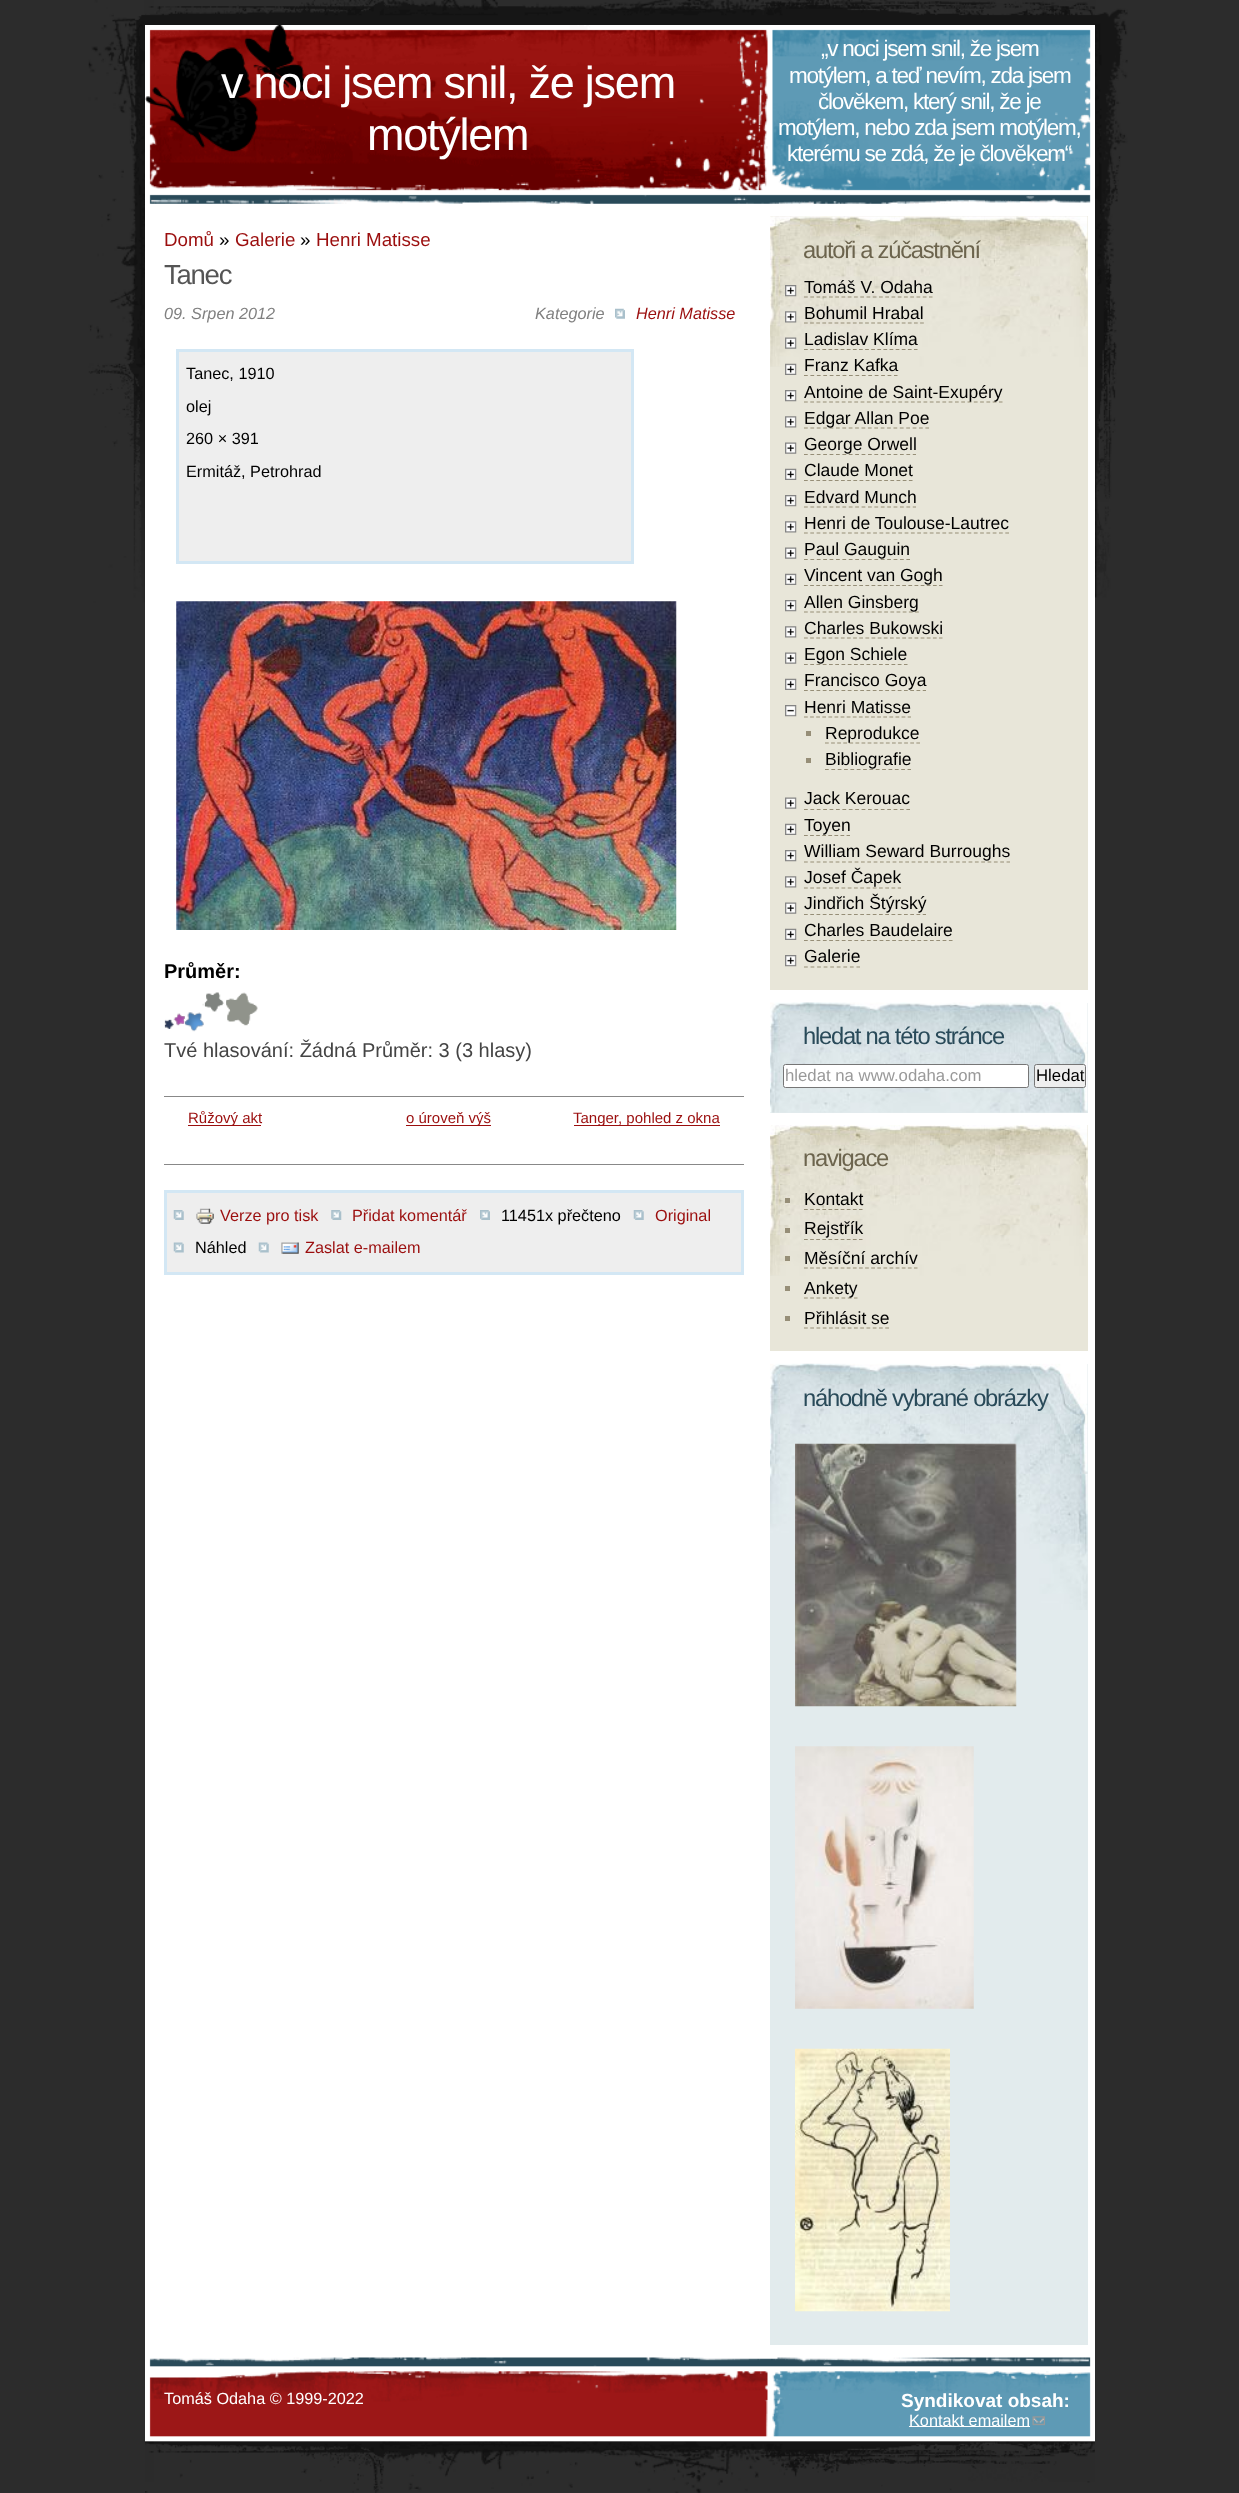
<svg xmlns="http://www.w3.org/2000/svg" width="1239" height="2493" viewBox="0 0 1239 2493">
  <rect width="100%" height="100%" fill="rgb(44,44,44)"/>
  <image x="88" y="0" width="1040" height="610" href="pic1.png"/>
  <rect x="145" y="25" width="950" height="2333" fill="rgb(255,255,255)"/>
  <image x="149" y="25" width="942" height="179" href="pic2.png"/>
  <image x="145" y="25" width="162" height="127" href="pic3.png"/>
  <g font-family="Liberation Sans" font-size="45" letter-spacing="-1.25" fill="rgb(255,255,255)">
    <text x="221" y="98">v noci jsem snil, že jsem</text>
    <text x="367" y="150">motýlem</text>
  </g>
  <g font-family="Liberation Sans" font-size="22.5" letter-spacing="-1.25" fill="rgb(255,255,255)">
    <text x="821" y="56">„v noci jsem snil, že jsem</text>
    <text x="789" y="83">motýlem, a teď nevím, zda jsem</text>
    <text x="818" y="109">člověkem, který snil, že je</text>
    <text x="778" y="135">motýlem, nebo zda jsem motýlem,</text>
    <text x="787" y="161">kterému se zdá, že je člověkem“</text>
  </g>
  <text x="164" y="246" font-family="Liberation Sans" font-size="18.75" fill="rgb(155,14,14)">Domů</text>
  <text x="219" y="246" font-family="Liberation Sans" font-size="18.75" fill="rgb(0,0,0)">»</text>
  <text x="235" y="246" font-family="Liberation Sans" font-size="18.75" fill="rgb(155,14,14)">Galerie</text>
  <text x="300" y="246" font-family="Liberation Sans" font-size="18.75" fill="rgb(0,0,0)">»</text>
  <text x="316" y="246" font-family="Liberation Sans" font-size="18.75" fill="rgb(155,14,14)">Henri Matisse</text>
  <text x="164" y="284" font-family="Liberation Sans" font-size="27.5" letter-spacing="-1.25" fill="rgb(85,85,85)">Tanec</text>
  <g font-family="Liberation Sans" font-size="16.25" font-style="italic" fill="rgb(128,128,128)">
    <text x="164" y="319">09. Srpen 2012</text>
    <text x="535" y="319">Kategorie</text>
  </g>
  <image x="615" y="308" width="10" height="11" href="pic4.png"/>
  <text x="636" y="319" font-family="Liberation Sans" font-size="16.25" font-style="italic" fill="rgb(155,14,14)">Henri Matisse</text>
  <rect x="177.5" y="350.5" width="455" height="212" fill="rgb(238,238,238)" stroke="rgb(211,231,244)" stroke-width="3"/>
  <g font-family="Liberation Sans" font-size="16.25" fill="rgb(0,0,0)">
    <text x="186" y="379">Tanec, 1910</text>
    <text>
      <tspan x="186" y="412">olej</tspan>
      <tspan x="186" y="444">260 × 391</tspan>
    </text>
    <text x="186" y="477">Ermitáž, Petrohrad</text>
  </g>
  <image x="176" y="601" width="501" height="329" href="pic5.png"/>
  <text x="164" y="978" font-family="Liberation Sans" font-size="20" font-weight="bold" fill="rgb(0,0,0)">Průměr:</text>
  <image x="164" y="1019" width="10" height="10" href="pic6.png"/>
  <image x="164" y="1019" width="10" height="10" href="pic7.png"/>
  <image x="173" y="1013" width="12" height="13" href="pic8.png"/>
  <image x="174" y="1013" width="11" height="13" href="pic9.png"/>
  <image x="185" y="1003" width="19" height="29" href="pic10.png"/>
  <image x="185" y="1012" width="19" height="19" href="pic11.png"/>
  <image x="204" y="992" width="20" height="20" href="pic12.png"/>
  <image x="204" y="992" width="20" height="20" href="pic13.png"/>
  <image x="226" y="992" width="32" height="34" href="pic14.png"/>
  <image x="226" y="992" width="32" height="34" href="pic15.png"/>
  <text x="164" y="1057" font-family="Liberation Sans" font-size="20" fill="rgb(68,68,68)">Tvé hlasování: Žádná Průměr: 3 (3 hlasy)</text>
  <rect x="164" y="1096" width="580" height="1" fill="rgb(136,136,136)"/>
  <rect x="164" y="1164" width="580" height="1" fill="rgb(136,136,136)"/>
  <rect x="188" y="1125" width="73" height="1" fill="rgb(155,14,14)"/>
  <text x="188" y="1123" font-family="Liberation Sans" font-size="15" fill="rgb(155,14,14)">Růžový akt</text>
  <rect x="406" y="1125" width="85" height="1" fill="rgb(155,14,14)"/>
  <text x="406" y="1123" font-family="Liberation Sans" font-size="15" fill="rgb(155,14,14)">o úroveň výš</text>
  <rect x="574" y="1125" width="146" height="1" fill="rgb(155,14,14)"/>
  <text x="573" y="1123" font-family="Liberation Sans" font-size="15" fill="rgb(155,14,14)">Tanger, pohled z okna</text>
  <rect x="165.5" y="1191.5" width="577" height="82" fill="rgb(238,238,238)" stroke="rgb(211,231,244)" stroke-width="3"/>
  <image x="173" y="1210" width="11" height="10" href="pic16.png"/>
  <image x="196" y="1208" width="18" height="16" href="pic17.png"/>
  <text x="220" y="1221" font-family="Liberation Sans" font-size="16.25" fill="rgb(155,14,14)">Verze pro tisk</text>
  <image x="331" y="1210" width="11" height="10" href="pic18.png"/>
  <text x="352" y="1221" font-family="Liberation Sans" font-size="16.25" fill="rgb(155,14,14)">Přidat komentář</text>
  <image x="480" y="1210" width="10" height="10" href="pic19.png"/>
  <text x="501" y="1221" font-family="Liberation Sans" font-size="16.25" fill="rgb(0,0,0)">11451x přečteno</text>
  <image x="633" y="1210" width="11" height="10" href="pic16.png"/>
  <text x="655" y="1221" font-family="Liberation Sans" font-size="16.25" fill="rgb(155,14,14)">Original</text>
  <image x="173" y="1242" width="11" height="11" href="pic20.png"/>
  <text x="195" y="1253" font-family="Liberation Sans" font-size="16.25" fill="rgb(0,0,0)">Náhled</text>
  <image x="258" y="1242" width="11" height="11" href="pic20.png"/>
  <image x="281" y="1242" width="18" height="12" href="pic21.png"/>
  <text x="305" y="1253" font-family="Liberation Sans" font-size="16.25" fill="rgb(155,14,14)">Zaslat e-mailem</text>
  <rect x="770" y="216" width="318" height="774" fill="rgb(232,230,217)"/>
  <image x="770" y="216" width="318" height="151" href="pic22.png"/>
  <text x="803" y="258" font-family="Liberation Sans" font-size="23.75" letter-spacing="-1.25" fill="rgb(108,100,77)">autoři a zúčastnění</text>
  <image x="785" y="285" width="12" height="12" href="pic23.png"/>
  <text x="804" y="293" font-family="Liberation Sans" font-size="17.5" fill="rgb(0,0,0)">Tomáš V. Odaha</text>
  <path d="M804 297H932.5" fill="none" stroke="rgb(150,142,119)" stroke-width="1.2" stroke-dasharray="3.75 2.5"/>
  <image x="785" y="311" width="12" height="12" href="pic24.png"/>
  <text x="804" y="319" font-family="Liberation Sans" font-size="17.5" fill="rgb(0,0,0)">Bohumil Hrabal</text>
  <path d="M804 323H924" fill="none" stroke="rgb(150,142,119)" stroke-width="1.2" stroke-dasharray="3.75 2.36"/>
  <image x="785" y="337" width="12" height="12" href="pic25.png"/>
  <text x="804" y="345" font-family="Liberation Sans" font-size="17.5" fill="rgb(0,0,0)">Ladislav Klíma</text>
  <path d="M804 349.5H917.5" fill="none" stroke="rgb(150,142,119)" stroke-width="1.2" stroke-dasharray="3.75 2.36"/>
  <image x="785" y="363" width="12" height="12" href="pic26.png"/>
  <text x="804" y="371" font-family="Liberation Sans" font-size="17.5" fill="rgb(0,0,0)">Franz Kafka</text>
  <path d="M804 375.5H897.5" fill="none" stroke="rgb(150,142,119)" stroke-width="1.2" stroke-dasharray="3.75 2.68"/>
  <image x="785" y="390" width="12" height="12" href="pic27.png"/>
  <path d="M804 402H1002.5" fill="none" stroke="rgb(150,142,119)" stroke-width="1.2" stroke-dasharray="3.75 2.54"/>
  <text x="804" y="398" font-family="Liberation Sans" font-size="17.5" fill="rgb(0,0,0)">Antoine de Saint-Exupéry</text>
  <image x="785" y="416" width="12" height="12" href="pic28.png"/>
  <path d="M804 428H929" fill="none" stroke="rgb(150,142,119)" stroke-width="1.2" stroke-dasharray="3.75 2.64"/>
  <text x="804" y="424" font-family="Liberation Sans" font-size="17.5" fill="rgb(0,0,0)">Edgar Allan Poe</text>
  <image x="785" y="442" width="12" height="12" href="pic29.png"/>
  <path d="M804 454.5H916" fill="none" stroke="rgb(150,142,119)" stroke-width="1.2" stroke-dasharray="3.75 2.65"/>
  <text x="804" y="450" font-family="Liberation Sans" font-size="17.5" fill="rgb(0,0,0)">George Orwell</text>
  <image x="785" y="468" width="12" height="12" href="pic30.png"/>
  <text x="804" y="476" font-family="Liberation Sans" font-size="17.5" fill="rgb(0,0,0)">Claude Monet</text>
  <path d="M804 480.5H912.5" fill="none" stroke="rgb(150,142,119)" stroke-width="1.2" stroke-dasharray="3.75 2.42"/>
  <image x="785" y="495" width="12" height="12" href="pic27.png"/>
  <text x="804" y="503" font-family="Liberation Sans" font-size="17.5" fill="rgb(0,0,0)">Edvard Munch</text>
  <path d="M804 507H916" fill="none" stroke="rgb(150,142,119)" stroke-width="1.2" stroke-dasharray="3.75 2.65"/>
  <image x="785" y="521" width="12" height="12" href="pic28.png"/>
  <text x="804" y="529" font-family="Liberation Sans" font-size="17.5" fill="rgb(0,0,0)">Henri de Toulouse-Lautrec</text>
  <path d="M804 533H1009" fill="none" stroke="rgb(150,142,119)" stroke-width="1.2" stroke-dasharray="3.75 2.54"/>
  <image x="785" y="547" width="12" height="12" href="pic29.png"/>
  <path d="M804 559.5H910" fill="none" stroke="rgb(150,142,119)" stroke-width="1.2" stroke-dasharray="3.75 2.65"/>
  <text x="804" y="555" font-family="Liberation Sans" font-size="17.5" fill="rgb(0,0,0)">Paul Gauguin</text>
  <image x="785" y="573" width="12" height="12" href="pic30.png"/>
  <path d="M804 585.5H942.5" fill="none" stroke="rgb(150,142,119)" stroke-width="1.2" stroke-dasharray="3.75 2.39"/>
  <text x="804" y="581" font-family="Liberation Sans" font-size="17.5" fill="rgb(0,0,0)">Vincent van Gogh</text>
  <image x="785" y="600" width="12" height="12" href="pic27.png"/>
  <path d="M804 612H919" fill="none" stroke="rgb(150,142,119)" stroke-width="1.2" stroke-dasharray="3.75 2.42"/>
  <text x="804" y="608" font-family="Liberation Sans" font-size="17.5" fill="rgb(0,0,0)">Allen Ginsberg</text>
  <image x="785" y="626" width="12" height="12" href="pic28.png"/>
  <text x="804" y="634" font-family="Liberation Sans" font-size="17.5" fill="rgb(0,0,0)">Charles Bukowski</text>
  <path d="M804 638H942.5" fill="none" stroke="rgb(150,142,119)" stroke-width="1.2" stroke-dasharray="3.75 2.39"/>
  <image x="785" y="652" width="12" height="12" href="pic29.png"/>
  <path d="M804 664.5H907.5" fill="none" stroke="rgb(150,142,119)" stroke-width="1.2" stroke-dasharray="3.75 2.5"/>
  <text x="804" y="660" font-family="Liberation Sans" font-size="17.5" fill="rgb(0,0,0)">Egon Schiele</text>
  <image x="785" y="678" width="12" height="12" href="pic30.png"/>
  <path d="M804 690.5H926" fill="none" stroke="rgb(150,142,119)" stroke-width="1.2" stroke-dasharray="3.75 2.5"/>
  <text x="804" y="686" font-family="Liberation Sans" font-size="17.5" fill="rgb(0,0,0)">Francisco Goya</text>
  <image x="785" y="705" width="12" height="12" href="pic31.png"/>
  <text x="804" y="713" font-family="Liberation Sans" font-size="17.5" fill="rgb(0,0,0)">Henri Matisse</text>
  <path d="M804 717H911" fill="none" stroke="rgb(150,142,119)" stroke-width="1.2" stroke-dasharray="3.75 2.35"/>
  <rect x="806" y="731" width="5" height="5" fill="rgb(150,142,119)"/>
  <path d="M825 743H920" fill="none" stroke="rgb(150,142,119)" stroke-width="1.2" stroke-dasharray="3.75 2.34"/>
  <text x="825" y="739" font-family="Liberation Sans" font-size="17.5" fill="rgb(0,0,0)">Reprodukce</text>
  <rect x="806" y="758" width="5" height="5" fill="rgb(150,142,119)"/>
  <path d="M825 769.5H911" fill="none" stroke="rgb(150,142,119)" stroke-width="1.2" stroke-dasharray="3.75 2.6"/>
  <text x="825" y="765" font-family="Liberation Sans" font-size="17.5" fill="rgb(0,0,0)">Bibliografie</text>
  <image x="785" y="797" width="12" height="12" href="pic29.png"/>
  <text x="804" y="804" font-family="Liberation Sans" font-size="17.5" fill="rgb(0,0,0)">Jack Kerouac</text>
  <path d="M804 809.5H910" fill="none" stroke="rgb(150,142,119)" stroke-width="1.2" stroke-dasharray="3.75 2.65"/>
  <image x="785" y="823" width="12" height="12" href="pic30.png"/>
  <path d="M804 835.5H850" fill="none" stroke="rgb(150,142,119)" stroke-width="1.2" stroke-dasharray="3.75 2.33"/>
  <text x="804" y="831" font-family="Liberation Sans" font-size="17.5" fill="rgb(0,0,0)">Toyen</text>
  <image x="785" y="850" width="12" height="12" href="pic27.png"/>
  <text x="804" y="857" font-family="Liberation Sans" font-size="17.5" fill="rgb(0,0,0)">William Seward Burroughs</text>
  <path d="M804 862H1010" fill="none" stroke="rgb(150,142,119)" stroke-width="1.2" stroke-dasharray="3.75 2.58"/>
  <image x="785" y="876" width="12" height="12" href="pic28.png"/>
  <text x="804" y="883" font-family="Liberation Sans" font-size="17.5" fill="rgb(0,0,0)">Josef Čapek</text>
  <path d="M804 888H901" fill="none" stroke="rgb(150,142,119)" stroke-width="1.2" stroke-dasharray="3.75 2.5"/>
  <image x="785" y="902" width="12" height="12" href="pic29.png"/>
  <text x="804" y="909" font-family="Liberation Sans" font-size="17.5" fill="rgb(0,0,0)">Jindřich Štýrský</text>
  <path d="M804 914.5H926" fill="none" stroke="rgb(150,142,119)" stroke-width="1.2" stroke-dasharray="3.75 2.5"/>
  <image x="785" y="928" width="12" height="12" href="pic30.png"/>
  <text x="804" y="936" font-family="Liberation Sans" font-size="17.5" fill="rgb(0,0,0)">Charles Baudelaire</text>
  <path d="M804 940.5H952.5" fill="none" stroke="rgb(150,142,119)" stroke-width="1.2" stroke-dasharray="3.75 2.55"/>
  <image x="785" y="955" width="12" height="12" href="pic27.png"/>
  <text x="804" y="962" font-family="Liberation Sans" font-size="17.5" fill="rgb(0,0,0)">Galerie</text>
  <path d="M804 967H860" fill="none" stroke="rgb(150,142,119)" stroke-width="1.2" stroke-dasharray="3.75 2.81"/>
  <rect x="770" y="1003" width="318" height="110" fill="rgb(226,235,237)"/>
  <image x="770" y="1002" width="318" height="111" href="pic32.png"/>
  <text x="803" y="1044" font-family="Liberation Sans" font-size="23.75" letter-spacing="-1.25" fill="rgb(41,74,89)">hledat na této stránce</text>
  <rect x="783.5" y="1064.5" width="245" height="23" rx="2" fill="rgb(255,255,255)" stroke="rgb(118,118,118)"/>
  <text x="785" y="1081" font-family="Liberation Sans" font-size="16.75" fill="rgb(153,153,153)">hledat na www.odaha.com</text>
  <rect x="1034.5" y="1064.5" width="51" height="23" rx="2" fill="rgb(239,239,239)" stroke="rgb(118,118,118)"/>
  <text x="1036" y="1081" font-family="Liberation Sans" font-size="16.75" fill="rgb(0,0,0)">Hledat</text>
  <rect x="770" y="1125" width="318" height="226" fill="rgb(232,230,217)"/>
  <image x="770" y="1125" width="318" height="151" href="pic33.png"/>
  <text x="803" y="1166" font-family="Liberation Sans" font-size="23.75" letter-spacing="-1.25" fill="rgb(108,100,77)">navigace</text>
  <rect x="785" y="1198" width="5" height="5" fill="rgb(150,142,119)"/>
  <text x="804" y="1205" font-family="Liberation Sans" font-size="17.5" fill="rgb(0,0,0)">Kontakt</text>
  <path d="M804 1209.5H862.5" fill="none" stroke="rgb(150,142,119)" stroke-width="1.2" stroke-dasharray="3.75 2.36"/>
  <rect x="785" y="1228" width="5" height="5" fill="rgb(150,142,119)"/>
  <text x="804" y="1234" font-family="Liberation Sans" font-size="17.5" fill="rgb(0,0,0)">Rejstřík</text>
  <path d="M804 1239.5H862.5" fill="none" stroke="rgb(150,142,119)" stroke-width="1.2" stroke-dasharray="3.75 2.36"/>
  <rect x="785" y="1256" width="5" height="5" fill="rgb(150,142,119)"/>
  <text x="804" y="1264" font-family="Liberation Sans" font-size="17.5" fill="rgb(0,0,0)">Měsíční archív</text>
  <path d="M804 1268H917.5" fill="none" stroke="rgb(150,142,119)" stroke-width="1.2" stroke-dasharray="3.75 2.36"/>
  <rect x="785" y="1286" width="5" height="5" fill="rgb(150,142,119)"/>
  <path d="M804 1298H857.5" fill="none" stroke="rgb(150,142,119)" stroke-width="1.2" stroke-dasharray="3.75 2.5"/>
  <text x="804" y="1294" font-family="Liberation Sans" font-size="17.5" fill="rgb(0,0,0)">Ankety</text>
  <rect x="785" y="1316" width="5" height="5" fill="rgb(150,142,119)"/>
  <text x="804" y="1324" font-family="Liberation Sans" font-size="17.5" fill="rgb(0,0,0)">Přihlásit se</text>
  <path d="M804 1328H889" fill="none" stroke="rgb(150,142,119)" stroke-width="1.2" stroke-dasharray="3.75 2.5"/>
  <rect x="770" y="1364" width="318" height="981" fill="rgb(226,235,237)"/>
  <image x="770" y="1363" width="318" height="247" href="pic34.png"/>
  <text x="803" y="1406" font-family="Liberation Sans" font-size="23.75" letter-spacing="-1.25" fill="rgb(41,74,89)">náhodně vybrané obrázky</text>
  <image x="795" y="1443" width="222" height="264" href="pic35.png"/>
  <image x="795" y="1746" width="179" height="263" href="pic36.png"/>
  <image x="795" y="2048" width="155" height="264" href="pic37.png"/>
  <image x="145" y="2357" width="950" height="136" href="pic38.png"/>
  <text x="164" y="2404" font-family="Liberation Sans" font-size="16.25" fill="rgb(255,255,255)">Tomáš Odaha © 1999-2022</text>
  <text x="901" y="2407" font-family="Liberation Sans" font-size="19" font-weight="bold" fill="rgb(255,255,255)">Syndikovat obsah:</text>
  <rect x="909" y="2426" width="121" height="1" fill="rgb(255,255,255)"/>
  <text x="909" y="2426" font-family="Liberation Sans" font-size="16.25" fill="rgb(255,255,255)">Kontakt emailem</text>
  <image x="1032" y="2416" width="13" height="10" href="pic39.png"/>
</svg>
